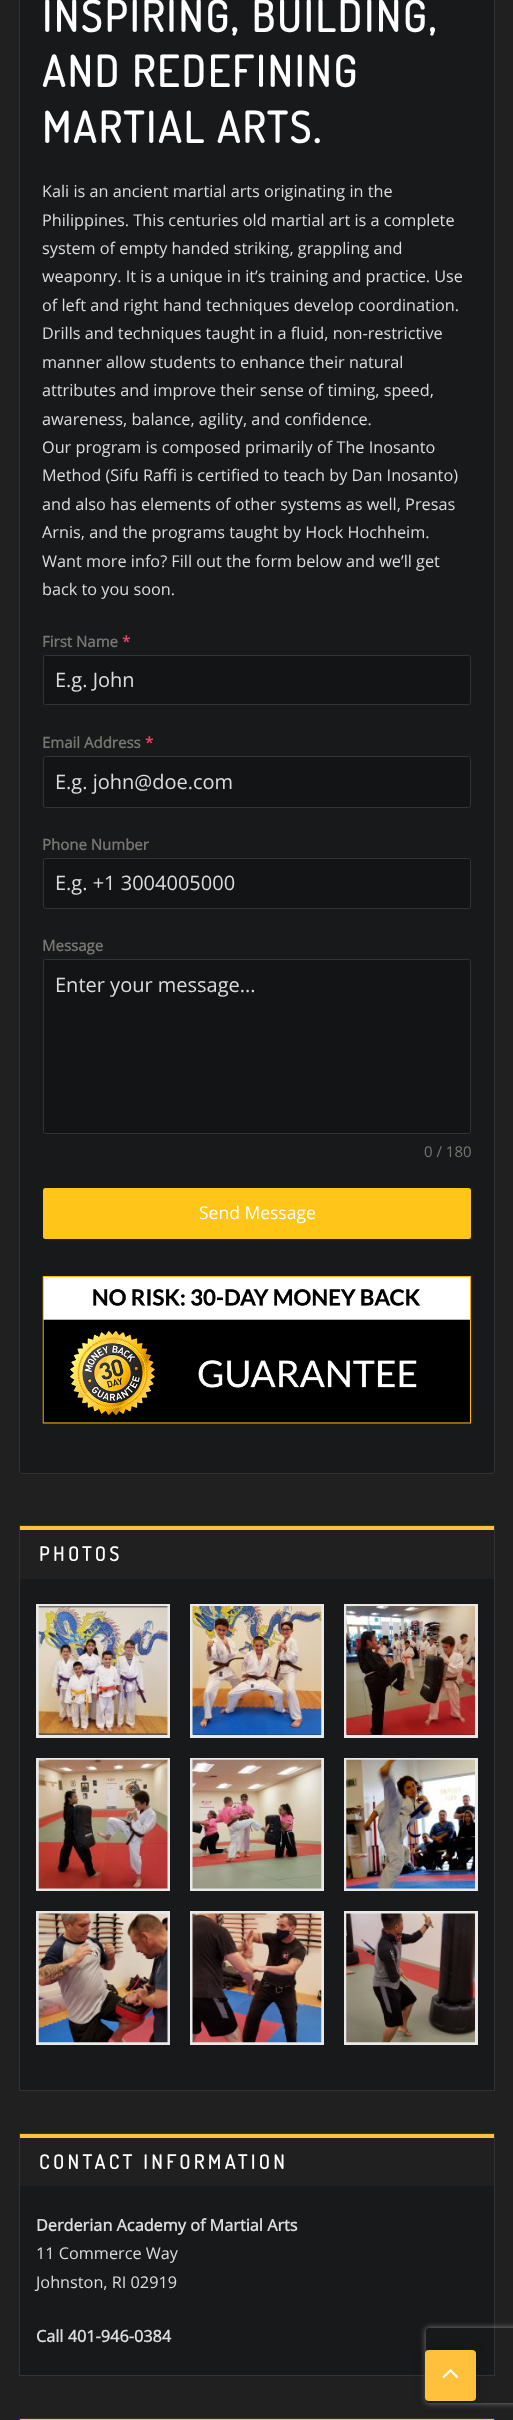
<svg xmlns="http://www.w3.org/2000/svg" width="513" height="2420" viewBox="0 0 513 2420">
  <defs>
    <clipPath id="clip1"><path d="M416 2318H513V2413H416ZM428.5 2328H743.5C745 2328 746 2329 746 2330.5V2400.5C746 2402 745 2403 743.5 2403H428.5C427 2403 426 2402 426 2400.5V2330.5C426 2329 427 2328 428.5 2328Z" clip-rule="evenodd"/></clipPath>
  </defs>
  <rect width="100%" height="100%" fill="rgb(32,32,32)"/>
  <rect x="19.5" y="-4.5" width="475" height="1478" rx="3.5" fill="rgb(24,25,27)" stroke="rgb(51,51,51)"/>
  <g font-family="Dosis" font-size="42.75" font-weight="bold" letter-spacing="2.5" fill="rgb(255,255,255)">
    <text>
      <tspan x="42" y="32">INSPIRING, BUILDING,</tspan>
      <tspan x="42" y="87">AND REDEFINING</tspan>
      <tspan x="42" y="143">MARTIAL ARTS.</tspan>
    </text>
  </g>
  <g font-family="Open Sans" font-size="16.25" fill="rgb(221,221,221)">
    <text>
      <tspan x="42" y="197">Kali is an ancient martial arts originating in the</tspan>
      <tspan x="42" y="226">Philippines. This centuries old martial art is a complete</tspan>
      <tspan x="42" y="254">system of empty handed striking, grappling and</tspan>
      <tspan x="42" y="282">weaponry. It is a unique in it’s training and practice. Use</tspan>
      <tspan x="42" y="311">of left and right hand techniques develop coordination.</tspan>
      <tspan x="42" y="339">Drills and techniques taught in a fluid, non-restrictive</tspan>
      <tspan x="42" y="368">manner allow students to enhance their natural</tspan>
      <tspan x="42" y="396">attributes and improve their sense of timing, speed,</tspan>
      <tspan x="42" y="425">awareness, balance, agility, and confidence.</tspan>
      <tspan x="42" y="453">Our program is composed primarily of The Inosanto</tspan>
      <tspan x="42" y="481">Method (Sifu Raffi is certified to teach by Dan Inosanto)</tspan>
      <tspan x="42" y="510">and also has elements of other systems as well, Presas</tspan>
      <tspan x="42" y="538">Arnis, and the programs taught by Hock Hochheim.</tspan>
      <tspan x="42" y="567">Want more info? Fill out the form below and we’ll get</tspan>
      <tspan x="42" y="595">back to you soon.</tspan>
    </text>
  </g>
  <text x="42" y="647" font-family="Open Sans" font-size="15" font-weight="bold" fill="rgb(119,119,113)">First Name</text>
  <text x="122" y="647" font-family="Open Sans" font-size="15" font-weight="bold" fill="rgb(224,69,98)">*</text>
  <rect x="43.5" y="655.5" width="427" height="49" rx="2" fill="rgb(19,20,22)" stroke="rgb(51,51,51)"/>
  <text x="55" y="687" font-family="Open Sans" font-size="20" fill="rgb(221,221,221)">E.g. John</text>
  <text x="42" y="748" font-family="Open Sans" font-size="15" font-weight="bold" fill="rgb(119,119,113)">Email Address</text>
  <text x="145" y="748" font-family="Open Sans" font-size="15" font-weight="bold" fill="rgb(224,69,98)">*</text>
  <rect x="43.5" y="756.5" width="427" height="51" rx="2" fill="rgb(19,20,22)" stroke="rgb(51,51,51)"/>
  <text x="55" y="789" font-family="Open Sans" font-size="20" fill="rgb(221,221,221)">E.g. john@doe.com</text>
  <text x="42" y="850" font-family="Open Sans" font-size="15" font-weight="bold" fill="rgb(119,119,113)">Phone Number</text>
  <rect x="43.5" y="858.5" width="427" height="50" rx="2" fill="rgb(19,20,22)" stroke="rgb(51,51,51)"/>
  <text x="55" y="890" font-family="Open Sans" font-size="20" fill="rgb(221,221,221)">E.g. +1 3004005000</text>
  <text x="42" y="951" font-family="Open Sans" font-size="15" font-weight="bold" fill="rgb(119,119,113)">Message</text>
  <rect x="43.5" y="959.5" width="427" height="174" rx="2" fill="rgb(19,20,22)" stroke="rgb(51,51,51)"/>
  <text x="55" y="992" font-family="Open Sans" font-size="20" fill="rgb(221,221,221)">Enter your message...</text>
  <text x="424" y="1157" font-family="Open Sans" font-size="15" fill="rgb(119,119,113)">0 / 180</text>
  <rect x="43" y="1188" width="428" height="51" rx="2.5" fill="rgb(255,197,25)"/>
  <text x="199" y="1219" font-family="Open Sans" font-size="17.5" fill="rgb(255,255,255)">Send Message</text>
  <rect x="20" y="2186" width="474" height="189" fill="rgb(24,25,27)"/>
  <rect x="19.5" y="2133.5" width="475" height="242" fill="none" stroke="rgb(51,51,51)"/>
  <g clip-path="url(#clip1)">
    <rect x="426" y="2328" width="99" height="75" rx="2.5" fill="rgb(128,128,128)" filter="blur(3px)"/>
  </g>
  <image x="42" y="1276" width="430" height="148" href="pic1.png"/>
  <rect x="20" y="1579" width="474" height="511" fill="rgb(24,25,27)"/>
  <rect x="19.5" y="1525.5" width="475" height="565" fill="none" stroke="rgb(51,51,51)"/>
  <rect x="20" y="1526" width="474" height="4" fill="rgb(255,193,59)"/>
  <text x="39" y="1561" font-family="Dosis" font-size="19.5" font-weight="bold" letter-spacing="3.75" fill="rgb(255,255,255)">PHOTOS</text>
  <rect x="37.5" y="1605.5" width="131" height="131" fill="none" stroke="rgb(233,233,233)" stroke-width="3"/>
  <image x="38" y="1606" width="130" height="129" href="pic2.png"/>
  <rect x="191.5" y="1605.5" width="131" height="131" fill="none" stroke="rgb(233,233,233)" stroke-width="3"/>
  <image x="192" y="1606" width="130" height="129" href="pic3.png"/>
  <rect x="345.5" y="1605.5" width="131" height="131" fill="none" stroke="rgb(233,233,233)" stroke-width="3"/>
  <image x="346" y="1606" width="129" height="129" href="pic4.png"/>
  <rect x="37.5" y="1759.5" width="131" height="130" fill="none" stroke="rgb(233,233,233)" stroke-width="3"/>
  <image x="38" y="1759" width="130" height="130" href="pic5.png"/>
  <rect x="191.5" y="1759.5" width="131" height="130" fill="none" stroke="rgb(233,233,233)" stroke-width="3"/>
  <image x="192" y="1759" width="130" height="130" href="pic6.png"/>
  <rect x="345.5" y="1759.5" width="131" height="130" fill="none" stroke="rgb(233,233,233)" stroke-width="3"/>
  <image x="346" y="1759" width="129" height="130" href="pic7.png"/>
  <rect x="37.5" y="1912.5" width="131" height="131" fill="none" stroke="rgb(233,233,233)" stroke-width="3"/>
  <image x="38" y="1913" width="130" height="130" href="pic8.png"/>
  <rect x="191.5" y="1912.5" width="131" height="131" fill="none" stroke="rgb(233,233,233)" stroke-width="3"/>
  <image x="192" y="1913" width="130" height="130" href="pic9.png"/>
  <rect x="345.5" y="1912.5" width="131" height="131" fill="none" stroke="rgb(233,233,233)" stroke-width="3"/>
  <image x="346" y="1913" width="129" height="130" href="pic10.png"/>
  <rect x="20" y="2134" width="474" height="4" fill="rgb(255,193,59)"/>
  <text x="39" y="2169" font-family="Dosis" font-size="19.5" font-weight="bold" letter-spacing="3.75" fill="rgb(255,255,255)">CONTACT INFORMATION</text>
  <text x="36" y="2231" font-family="Open Sans" font-size="16.25" font-weight="bold" fill="rgb(221,221,221)">Derderian Academy of Martial Arts</text>
  <g font-family="Open Sans" font-size="16.25" fill="rgb(221,221,221)">
    <text>
      <tspan x="36" y="2259">11 Commerce Way</tspan>
      <tspan x="36" y="2288">Johnston, RI 02919</tspan>
    </text>
  </g>
  <text x="36" y="2342" font-family="Open Sans" font-size="16.25" font-weight="bold" fill="rgb(221,221,221)">Call 401-946-0384</text>
  <rect x="19.5" y="2418.5" width="475" height="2" fill="none" stroke="rgb(51,51,51)"/>
  <rect x="20" y="2419" width="474" height="1" fill="rgb(255,193,59)"/>
  <rect x="425" y="2350" width="51" height="51" rx="4" fill="rgba(0,0,0,0.2)" filter="blur(6px)"/>
  <rect x="425" y="2350" width="51" height="51" rx="4" fill="rgb(255,193,59)"/>
  <image x="442" y="2369" width="17" height="10" href="pic11.png"/>
</svg>
